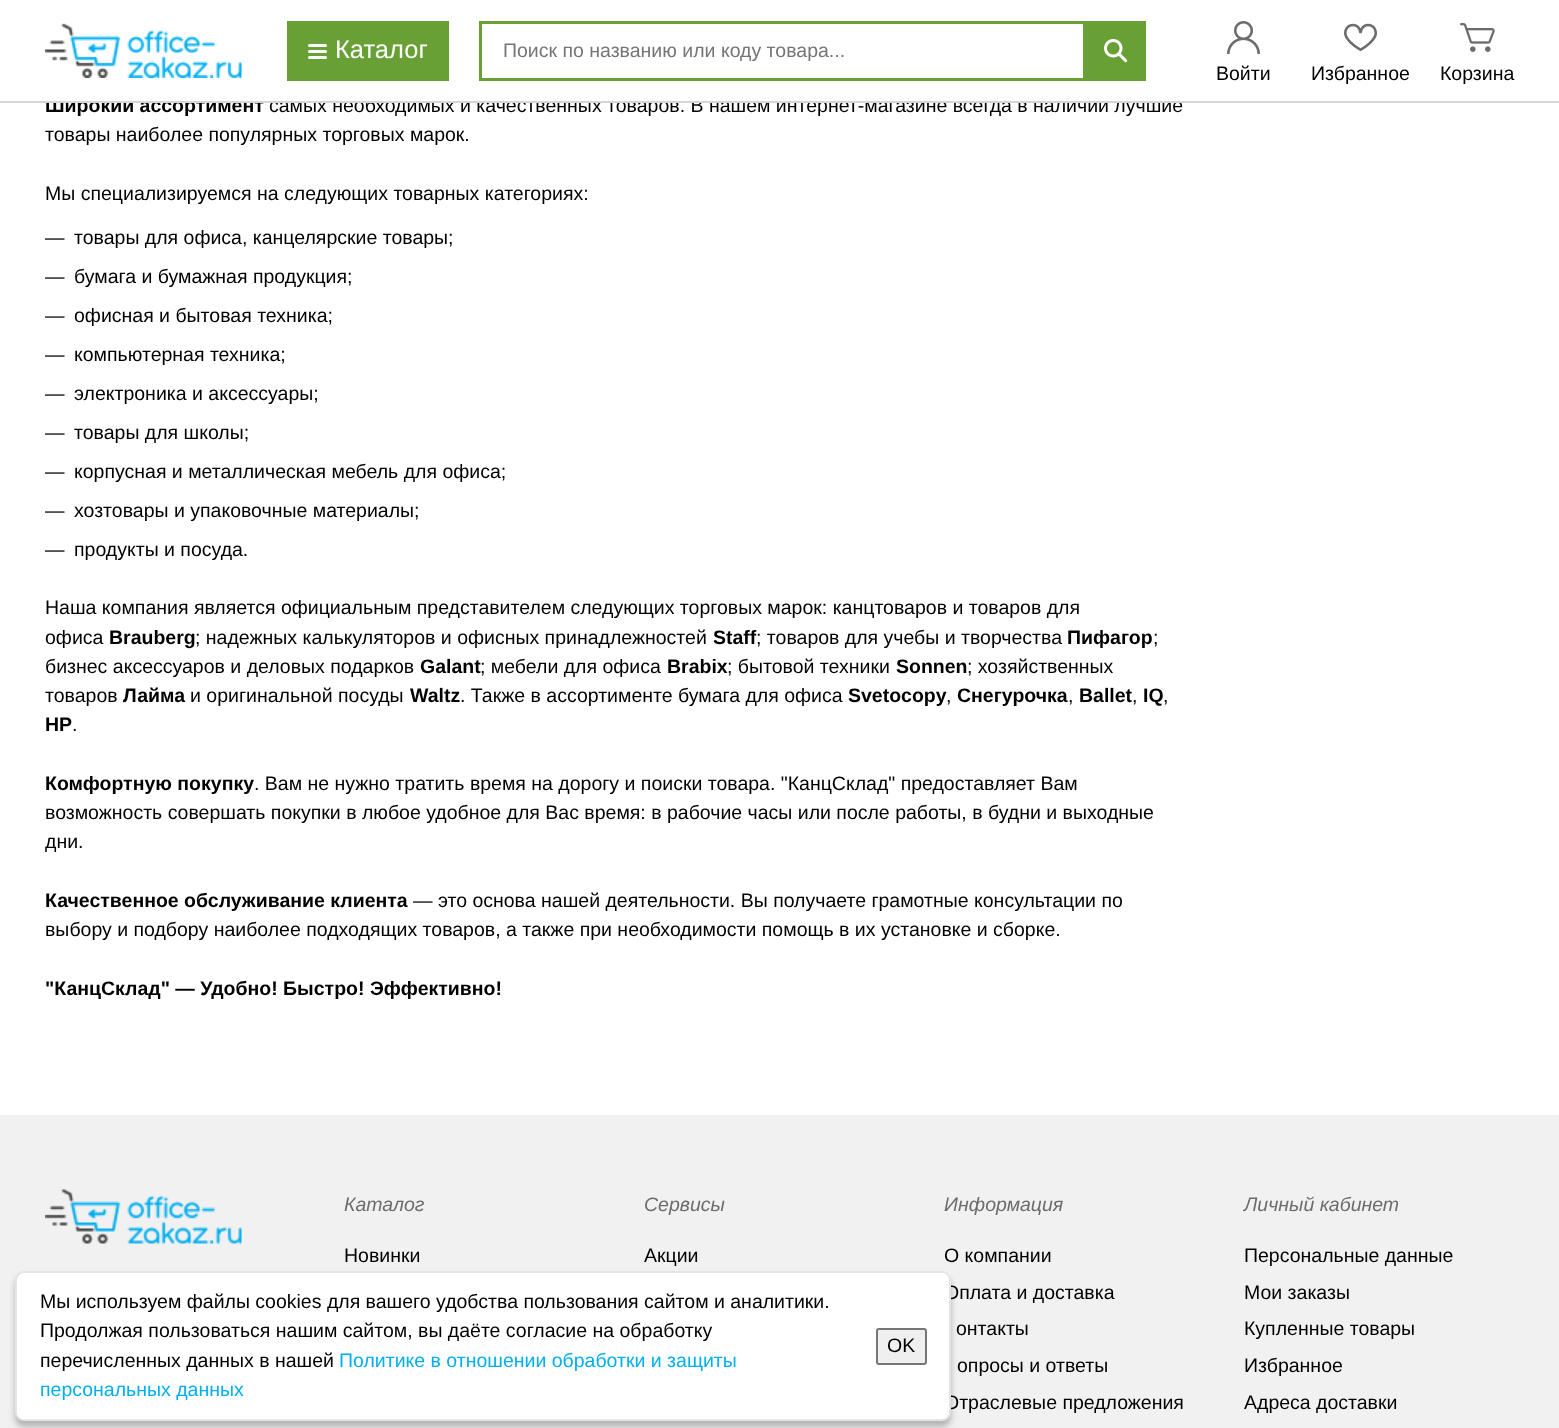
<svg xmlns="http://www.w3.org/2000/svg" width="1559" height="1428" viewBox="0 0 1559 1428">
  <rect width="100%" height="100%" fill="rgb(255,255,255)"/>
  <text x="45" y="112" font-family="Liberation Sans" font-size="19.5" font-weight="bold" fill="rgb(0,0,0)">Широкий ассортимент</text>
  <text x="269" y="112" font-family="Liberation Sans" font-size="19.5" fill="rgb(0,0,0)">самых необходимых и качественных товаров. В нашем интернет-магазине всегда в наличии лучшие</text>
  <rect x="46" y="97" width="656" height="4" fill="rgb(255,255,255)"/>
  <rect x="0" y="101" width="1559" height="2" fill="rgb(214,214,214)"/>
  <image x="45" y="23" width="197" height="55" href="pic1.png"/>
  <rect x="287" y="21" width="162" height="60" fill="rgb(104,160,54)"/>
  <rect x="308" y="50" width="19" height="3" rx="1.5" fill="rgb(255,255,255)"/>
  <rect x="308" y="44" width="19" height="3" rx="1.5" fill="rgb(255,255,255)"/>
  <rect x="308" y="56" width="19" height="3" rx="1.5" fill="rgb(255,255,255)"/>
  <text x="335" y="58" font-family="Liberation Sans" font-size="25.5" fill="rgb(255,255,255)">Каталог</text>
  <rect x="480.5" y="22.5" width="664" height="57" fill="none" stroke="rgb(104,160,54)" stroke-width="3"/>
  <text x="503" y="57" font-family="Liberation Sans" font-size="19.5" fill="rgb(117,117,117)">Поиск по названию или коду товара...</text>
  <rect x="1083" y="24" width="60" height="54" fill="rgb(104,160,54)"/>
  <image x="1104" y="39" width="24" height="24" href="pic2.png"/>
  <image x="1227" y="21" width="33" height="33" href="pic3.png"/>
  <text x="1216" y="80" font-family="Liberation Sans" font-size="19.5" fill="rgb(0,0,0)">Войти</text>
  <image x="1344" y="23" width="33" height="29" href="pic4.png"/>
  <text x="1311" y="80" font-family="Liberation Sans" font-size="19.5" fill="rgb(0,0,0)">Избранное</text>
  <image x="1460" y="23" width="35" height="29" href="pic5.png"/>
  <g font-family="Liberation Sans" font-size="19.5" fill="rgb(0,0,0)">
    <text x="1440" y="80">Корзина</text>
    <text x="45" y="141">товары наиболее популярных торговых марок.</text>
    <text x="45" y="200">Мы специализируемся на следующих товарных категориях:</text>
    <text x="45" y="244">—</text>
    <text x="74" y="244">товары для офиса, канцелярские товары;</text>
    <text x="45" y="283">—</text>
    <text x="74" y="283">бумага и бумажная продукция;</text>
    <text x="45" y="322">—</text>
    <text x="74" y="322">офисная и бытовая техника;</text>
    <text x="45" y="361">—</text>
    <text x="74" y="361">компьютерная техника;</text>
    <text x="45" y="400">—</text>
    <text x="74" y="400">электроника и аксессуары;</text>
    <text x="45" y="439">—</text>
    <text x="74" y="439">товары для школы;</text>
    <text x="45" y="478">—</text>
    <text x="74" y="478">корпусная и металлическая мебель для офиса;</text>
    <text x="45" y="517">—</text>
    <text x="74" y="517">хозтовары и упаковочные материалы;</text>
    <text x="45" y="556">—</text>
    <text x="74" y="556">продукты и посуда.</text>
    <text>
      <tspan x="45" y="614">Наша компания является официальным представителем следующих торговых марок: канцтоваров и товаров для</tspan>
      <tspan x="45" y="644">офиса</tspan>
    </text>
  </g>
  <text x="109" y="644" font-family="Liberation Sans" font-size="19.5" font-weight="bold" fill="rgb(0,0,0)">Brauberg</text>
  <text x="195" y="644" font-family="Liberation Sans" font-size="19.5" fill="rgb(0,0,0)">; надежных калькуляторов и офисных принадлежностей</text>
  <text x="713" y="644" font-family="Liberation Sans" font-size="19.5" font-weight="bold" fill="rgb(0,0,0)">Staff</text>
  <text x="756" y="644" font-family="Liberation Sans" font-size="19.5" fill="rgb(0,0,0)">; товаров для учебы и творчества</text>
  <text x="1067" y="644" font-family="Liberation Sans" font-size="19.5" font-weight="bold" fill="rgb(0,0,0)">Пифагор</text>
  <g font-family="Liberation Sans" font-size="19.5" fill="rgb(0,0,0)">
    <text x="1153" y="644">;</text>
    <text x="45" y="673">бизнес аксессуаров и деловых подарков</text>
  </g>
  <text x="420" y="673" font-family="Liberation Sans" font-size="19.5" font-weight="bold" fill="rgb(0,0,0)">Galant</text>
  <text x="480" y="673" font-family="Liberation Sans" font-size="19.5" fill="rgb(0,0,0)">; мебели для офиса</text>
  <text x="667" y="673" font-family="Liberation Sans" font-size="19.5" font-weight="bold" fill="rgb(0,0,0)">Brabix</text>
  <text x="727" y="673" font-family="Liberation Sans" font-size="19.5" fill="rgb(0,0,0)">; бытовой техники</text>
  <text x="896" y="673" font-family="Liberation Sans" font-size="19.5" font-weight="bold" fill="rgb(0,0,0)">Sonnen</text>
  <g font-family="Liberation Sans" font-size="19.5" fill="rgb(0,0,0)">
    <text x="967" y="673">; хозяйственных</text>
    <text x="45" y="702">товаров</text>
  </g>
  <text x="123" y="702" font-family="Liberation Sans" font-size="19.5" font-weight="bold" fill="rgb(0,0,0)">Лайма</text>
  <text x="190" y="702" font-family="Liberation Sans" font-size="19.5" fill="rgb(0,0,0)">и оригинальной посуды</text>
  <text x="410" y="702" font-family="Liberation Sans" font-size="19.5" font-weight="bold" fill="rgb(0,0,0)">Waltz</text>
  <text x="460" y="702" font-family="Liberation Sans" font-size="19.5" fill="rgb(0,0,0)">. Также в ассортименте бумага для офиса</text>
  <text x="848" y="702" font-family="Liberation Sans" font-size="19.5" font-weight="bold" fill="rgb(0,0,0)">Svetocopy</text>
  <text x="946" y="702" font-family="Liberation Sans" font-size="19.5" fill="rgb(0,0,0)">,</text>
  <text x="957" y="702" font-family="Liberation Sans" font-size="19.5" font-weight="bold" fill="rgb(0,0,0)">Снегурочка</text>
  <text x="1068" y="702" font-family="Liberation Sans" font-size="19.5" fill="rgb(0,0,0)">,</text>
  <text x="1079" y="702" font-family="Liberation Sans" font-size="19.5" font-weight="bold" fill="rgb(0,0,0)">Ballet</text>
  <text x="1132" y="702" font-family="Liberation Sans" font-size="19.5" fill="rgb(0,0,0)">,</text>
  <text x="1143" y="702" font-family="Liberation Sans" font-size="19.5" font-weight="bold" fill="rgb(0,0,0)">IQ</text>
  <text x="1163" y="702" font-family="Liberation Sans" font-size="19.5" fill="rgb(0,0,0)">,</text>
  <text x="45" y="731" font-family="Liberation Sans" font-size="19.5" font-weight="bold" fill="rgb(0,0,0)">HP</text>
  <text x="72" y="731" font-family="Liberation Sans" font-size="19.5" fill="rgb(0,0,0)">.</text>
  <text x="45" y="790" font-family="Liberation Sans" font-size="19.5" font-weight="bold" fill="rgb(0,0,0)">Комфортную покупку</text>
  <g font-family="Liberation Sans" font-size="19.5" fill="rgb(0,0,0)">
    <text x="254" y="790">. Вам не нужно тратить время на дорогу и поиски товара. "КанцСклад" предоставляет Вам</text>
    <text>
      <tspan x="45" y="819">возможность совершать покупки в любое удобное для Вас время: в рабочие часы или после работы, в будни и выходные</tspan>
      <tspan x="45" y="848">дни.</tspan>
    </text>
  </g>
  <text x="45" y="907" font-family="Liberation Sans" font-size="19.5" font-weight="bold" fill="rgb(0,0,0)">Качественное обслуживание клиента</text>
  <g font-family="Liberation Sans" font-size="19.5" fill="rgb(0,0,0)">
    <text x="413" y="907">— это основа нашей деятельности. Вы получаете грамотные консультации по</text>
    <text x="45" y="936">выбору и подбору наиболее подходящих товаров, а также при необходимости помощь в их установке и сборке.</text>
  </g>
  <text x="45" y="995" font-family="Liberation Sans" font-size="19.5" font-weight="bold" fill="rgb(0,0,0)">"КанцСклад" — Удобно! Быстро! Эффективно!</text>
  <rect x="0" y="1115" width="1559" height="313" fill="rgb(241,241,241)"/>
  <image x="45" y="1189" width="197" height="55" href="pic6.png"/>
  <text x="344" y="1211" font-family="Liberation Sans" font-size="19.5" font-style="italic" fill="rgb(108,108,108)">Каталог</text>
  <text x="344" y="1262" font-family="Liberation Sans" font-size="19.5" fill="rgb(0,0,0)">Новинки</text>
  <text x="644" y="1211" font-family="Liberation Sans" font-size="19.5" font-style="italic" fill="rgb(108,108,108)">Сервисы</text>
  <text x="644" y="1262" font-family="Liberation Sans" font-size="19.5" fill="rgb(0,0,0)">Акции</text>
  <text x="944" y="1211" font-family="Liberation Sans" font-size="19.5" font-style="italic" fill="rgb(108,108,108)">Информация</text>
  <g font-family="Liberation Sans" font-size="19.5" fill="rgb(0,0,0)">
    <text>
      <tspan x="944" y="1262">О компании</tspan>
      <tspan x="944" y="1299">Оплата и доставка</tspan>
    </text>
    <text x="956" y="1335">онтакты</text>
    <text x="957" y="1372">опросы и ответы</text>
    <text x="944" y="1409">Отраслевые предложения</text>
  </g>
  <text x="1244" y="1211" font-family="Liberation Sans" font-size="19.5" font-style="italic" fill="rgb(108,108,108)">Личный кабинет</text>
  <g font-family="Liberation Sans" font-size="19.5" fill="rgb(0,0,0)">
    <text>
      <tspan x="1244" y="1262">Персональные данные</tspan>
      <tspan x="1244" y="1299">Мои заказы</tspan>
      <tspan x="1244" y="1335">Купленные товары</tspan>
      <tspan x="1244" y="1372">Избранное</tspan>
      <tspan x="1244" y="1409">Адреса доставки</tspan>
    </text>
  </g>
  <rect x="15" y="1277" width="936" height="150" rx="9" fill="rgba(0,0,0,0.25)" filter="blur(3px)"/>
  <rect x="16" y="1272" width="934" height="148" rx="8" fill="rgb(255,255,255)" stroke="rgb(229,229,229)" stroke-width="2"/>
  <g font-family="Liberation Sans" font-size="19.5" fill="rgb(0,0,0)">
    <text>
      <tspan x="40" y="1308">Мы используем файлы cookies для вашего удобства пользования сайтом и аналитики.</tspan>
      <tspan x="40" y="1337">Продолжая пользоваться нашим сайтом, вы даёте согласие на обработку</tspan>
      <tspan x="40" y="1367">перечисленных данных в нашей</tspan>
    </text>
  </g>
  <g font-family="Liberation Sans" font-size="19.5" fill="rgb(0,175,240)">
    <text x="339" y="1367">Политике в отношении обработки и защиты</text>
    <text x="40" y="1396">персональных данных</text>
  </g>
  <rect x="877" y="1329" width="49" height="35" rx="2" fill="rgb(239,239,239)" stroke="rgb(118,118,118)" stroke-width="2"/>
  <text x="887" y="1352" font-family="Liberation Sans" font-size="19.5" fill="rgb(0,0,0)">OK</text>
</svg>
